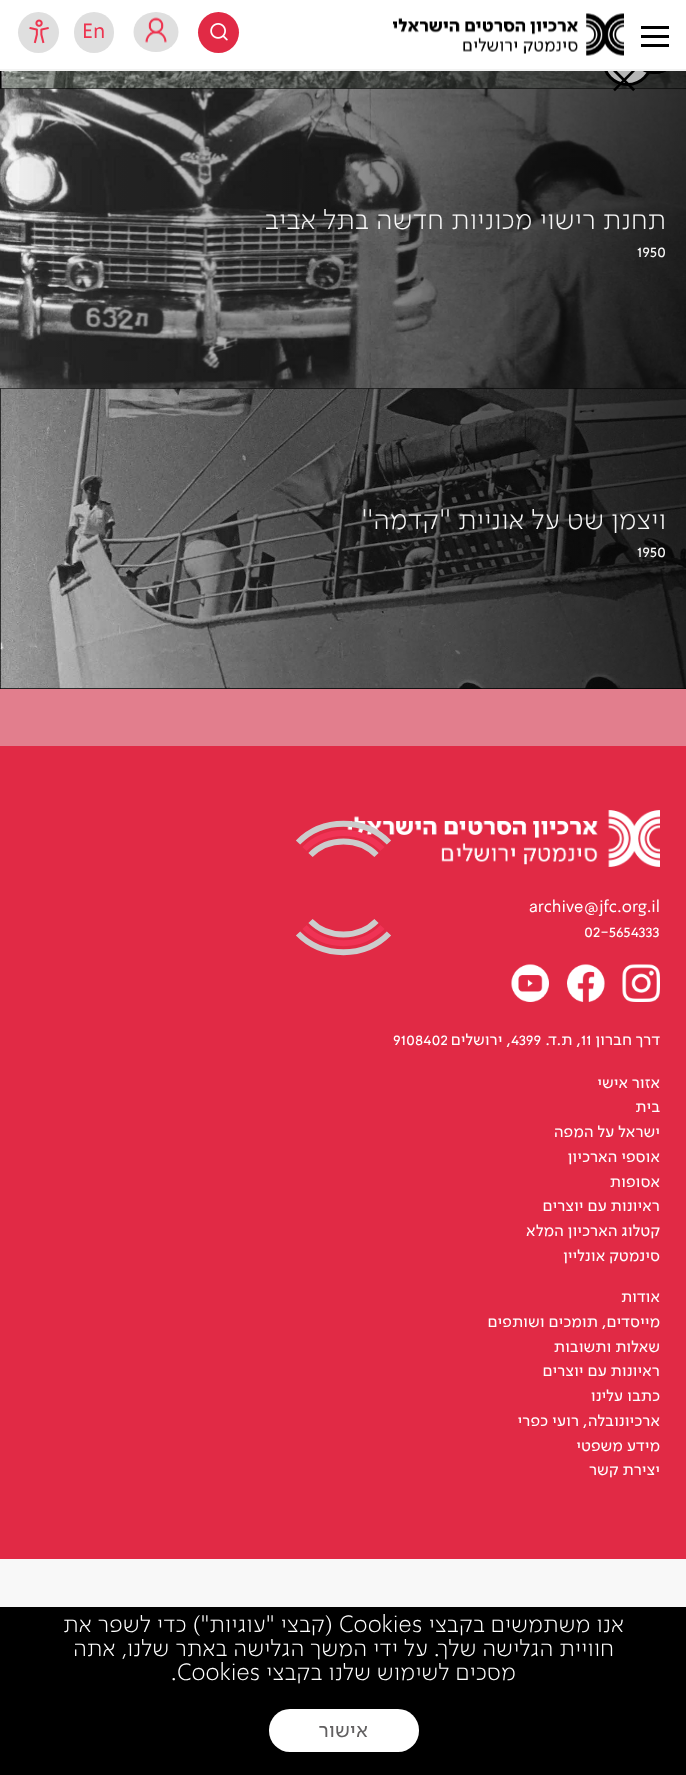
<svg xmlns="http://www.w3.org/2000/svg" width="686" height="1775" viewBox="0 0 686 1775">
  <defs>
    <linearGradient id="g1" gradientUnits="userSpaceOnUse" x1="0" y1="-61" x2="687" y2="-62"><stop offset="0" stop-color="rgb(0,0,0)" stop-opacity="0"/><stop offset="1" stop-color="rgb(0,0,0)" stop-opacity="0.8"/></linearGradient>
    <linearGradient id="g2" gradientUnits="userSpaceOnUse" x1="0" y1="239" x2="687" y2="239"><stop offset="0" stop-color="rgb(0,0,0)" stop-opacity="0"/><stop offset="1" stop-color="rgb(0,0,0)" stop-opacity="0.8"/></linearGradient>
    <linearGradient id="g3" gradientUnits="userSpaceOnUse" x1="0" y1="539" x2="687" y2="539"><stop offset="0" stop-color="rgb(0,0,0)" stop-opacity="0"/><stop offset="1" stop-color="rgb(0,0,0)" stop-opacity="0.8"/></linearGradient>
  </defs>
  <rect width="100%" height="100%" fill="rgb(248,248,248)"/>
  <rect x="0" y="88" width="686" height="1" fill="rgb(0,0,0)"/>
  <image x="0" y="71" width="686" height="18" href="pic5.png"/>
  <rect x="0" y="388" width="686" height="1" fill="rgb(0,0,0)"/>
  <image x="0" y="88" width="686" height="301" href="pic6.png"/>
  <rect x="19" y="71" width="667" height="18" fill="url(#g1)"/>
  <circle cx="654.5" cy="48.5" r="24" fill="none" stroke="rgb(0,0,0)" stroke-width="3"/>
  <circle cx="627.5" cy="60.5" r="24" fill="rgb(181,181,181)" stroke="rgb(0,0,0)" stroke-width="3"/>
  <circle cx="654.5" cy="48.5" r="24" fill="none" stroke="rgb(0,0,0)" stroke-width="3"/>
  <rect x="0" y="0" width="686" height="69" fill="rgb(255,255,255)"/>
  <rect x="0" y="688" width="686" height="1" fill="rgb(0,0,0)"/>
  <image x="0" y="388" width="686" height="301" href="pic7.png"/>
  <rect x="19" y="89" width="667" height="300" fill="url(#g2)"/>
  <text x="608" y="96" font-family="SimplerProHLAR" font-size="57" font-weight="300" fill="rgb(0,0,0)">×</text>
  <rect x="0" y="69" width="686" height="2" fill="rgb(243,243,243)"/>
  <rect x="641" y="26" width="28" height="3" fill="rgb(0,0,0)"/>
  <rect x="641" y="35" width="28" height="3" fill="rgb(0,0,0)"/>
  <rect x="641" y="44" width="28" height="3" fill="rgb(0,0,0)"/>
  <image x="393" y="13" width="231" height="43" href="pic1.png"/>
  <circle cx="218.5" cy="32.5" r="20.5" fill="rgb(225,42,69)"/>
  <image x="210" y="23" width="18" height="18" href="pic2.png"/>
  <ellipse cx="156" cy="32" rx="22.5" ry="20" fill="rgb(223,223,223)"/>
  <image x="145" y="17" width="22" height="26" href="pic3.png"/>
  <rect x="74" y="12" width="40" height="41" rx="20" fill="rgb(223,223,223)"/>
  <text x="82" y="38" font-family="SimplerProHLAR" font-size="21" fill="rgb(237,53,80)">En</text>
  <circle cx="38.5" cy="32.5" r="20.5" fill="rgb(223,223,223)"/>
  <image x="29" y="19" width="20" height="25" href="pic4.png"/>
  <rect x="0" y="689" width="686" height="57" fill="rgb(226,126,141)"/>
  <text x="666" y="229" font-family="SimplerProHLAR" font-size="28.5" font-weight="300" direction="rtl" fill="rgb(248,248,248)">תחנת רישוי מכוניות חדשה בתל אביב</text>
  <text x="637" y="257" font-family="SimplerProHLAR" font-size="16.5" fill="rgb(248,248,248)">1950</text>
  <rect x="19" y="389" width="667" height="300" fill="url(#g3)"/>
  <text x="666" y="529" font-family="SimplerProHLAR" font-size="28.5" font-weight="300" direction="rtl" fill="rgb(248,248,248)">ויצמן שט על אוניית ''קדמה''</text>
  <text x="637" y="557" font-family="SimplerProHLAR" font-size="16.5" fill="rgb(248,248,248)">1950</text>
  <rect x="0" y="746" width="686" height="813" fill="rgb(225,42,69)"/>
  <image x="347" y="810" width="313" height="57" href="pic8.png"/>
  <g font-family="SimplerProHLAR" font-size="16.5" fill="rgb(255,255,255)">
    <text x="529" y="912">archive@jfc.org.il</text>
    <text x="584" y="937">02-5654333</text>
  </g>
  <image x="622" y="964" width="38" height="38" href="pic9.png"/>
  <image x="567" y="964" width="38" height="38" href="pic10.png"/>
  <image x="511" y="964" width="38" height="38" href="pic11.png"/>
  <text x="660" y="1045" font-family="SimplerProHLAR" font-size="16.5" direction="rtl" fill="rgb(255,255,255)">דרך חברון</text>
  <text x="581" y="1045" font-family="SimplerProHLAR" font-size="16.5" fill="rgb(255,255,255)">11</text>
  <text x="581" y="1045" font-family="SimplerProHLAR" font-size="16.5" direction="rtl" fill="rgb(255,255,255)">, ת.ד.</text>
  <text x="511" y="1045" font-family="SimplerProHLAR" font-size="16.5" fill="rgb(255,255,255)">4399</text>
  <text x="511" y="1045" font-family="SimplerProHLAR" font-size="16.5" direction="rtl" fill="rgb(255,255,255)">, ירושלים</text>
  <text x="393" y="1045" font-family="SimplerProHLAR" font-size="16.5" fill="rgb(255,255,255)">9108402</text>
  <g font-family="SimplerProHLAR" font-size="16.5" direction="rtl" fill="rgb(255,255,255)">
    <text>
      <tspan x="660" y="1088">אזור אישי</tspan>
      <tspan x="660" y="1112">בית</tspan>
      <tspan x="660" y="1137">ישראל על המפה</tspan>
      <tspan x="660" y="1162">אוספי הארכיון</tspan>
      <tspan x="660" y="1187">אסופות</tspan>
      <tspan x="660" y="1211">ראיונות עם יוצרים</tspan>
      <tspan x="660" y="1236">קטלוג הארכיון המלא</tspan>
      <tspan x="660" y="1261">סינמטק אונליין</tspan>
    </text>
    <text>
      <tspan x="660" y="1302">אודות</tspan>
      <tspan x="660" y="1327">מייסדים, תומכים ושותפים</tspan>
      <tspan x="660" y="1352">שאלות ותשובות</tspan>
      <tspan x="660" y="1376">ראיונות עם יוצרים</tspan>
      <tspan x="660" y="1401">כתבו עלינו</tspan>
      <tspan x="660" y="1426">ארכיונובלה, רועי כפרי</tspan>
      <tspan x="660" y="1451">מידע משפטי</tspan>
      <tspan x="660" y="1475">יצירת קשר</tspan>
    </text>
  </g>
  <path d="M298 842.5C322.5 817.5 364.5 817.5 389 842.5" fill="none" stroke="rgb(204,204,204)" stroke-width="6"/>
  <path d="M389 933.5C364.5 958.5 322.5 958.5 298 933.5" fill="none" stroke="rgb(204,204,204)" stroke-width="6"/>
  <path d="M304.5 849C325.5 827.5 361.5 827.5 382.5 849" fill="none" stroke="rgb(240,51,85)" stroke-width="6"/>
  <path d="M382.5 927C361.5 948.5 325.5 948.5 304.5 927" fill="none" stroke="rgb(240,51,85)" stroke-width="6"/>
  <path d="M310.5 855C328.5 837 358.5 837 376.5 855" fill="none" stroke="rgb(204,204,204)" stroke-width="6"/>
  <path d="M376.5 921C358.5 939 328.5 939 310.5 921" fill="none" stroke="rgb(204,204,204)" stroke-width="6"/>
  <rect x="0" y="1607" width="686" height="168" fill="rgb(0,0,0)"/>
  <text x="624" y="1632" font-family="SimplerProHLAR" font-size="24" font-weight="300" direction="rtl" fill="rgb(255,255,255)">אנו משתמשים בקבצי</text>
  <text x="339" y="1632" font-family="SimplerProHLAR" font-size="24" font-weight="300" fill="rgb(255,255,255)">Cookies</text>
  <g font-family="SimplerProHLAR" font-size="24" font-weight="300" direction="rtl" fill="rgb(255,255,255)">
    <text x="333" y="1632">(קבצי "עוגיות") כדי לשפר את</text>
    <text x="614" y="1656">חוויית הגלישה שלך. על ידי המשך הגלישה באתר שלנו, אתה</text>
    <text x="516" y="1680">מסכים לשימוש שלנו בקבצי</text>
  </g>
  <text x="171" y="1680" font-family="SimplerProHLAR" font-size="24" font-weight="300" fill="rgb(255,255,255)">.Cookies</text>
  <rect x="269" y="1709" width="150" height="43" rx="21" fill="rgb(255,255,255)"/>
  <text x="368" y="1737" font-family="SimplerProHLAR" font-size="21" direction="rtl" fill="rgb(98,96,97)">אישור</text>
</svg>
